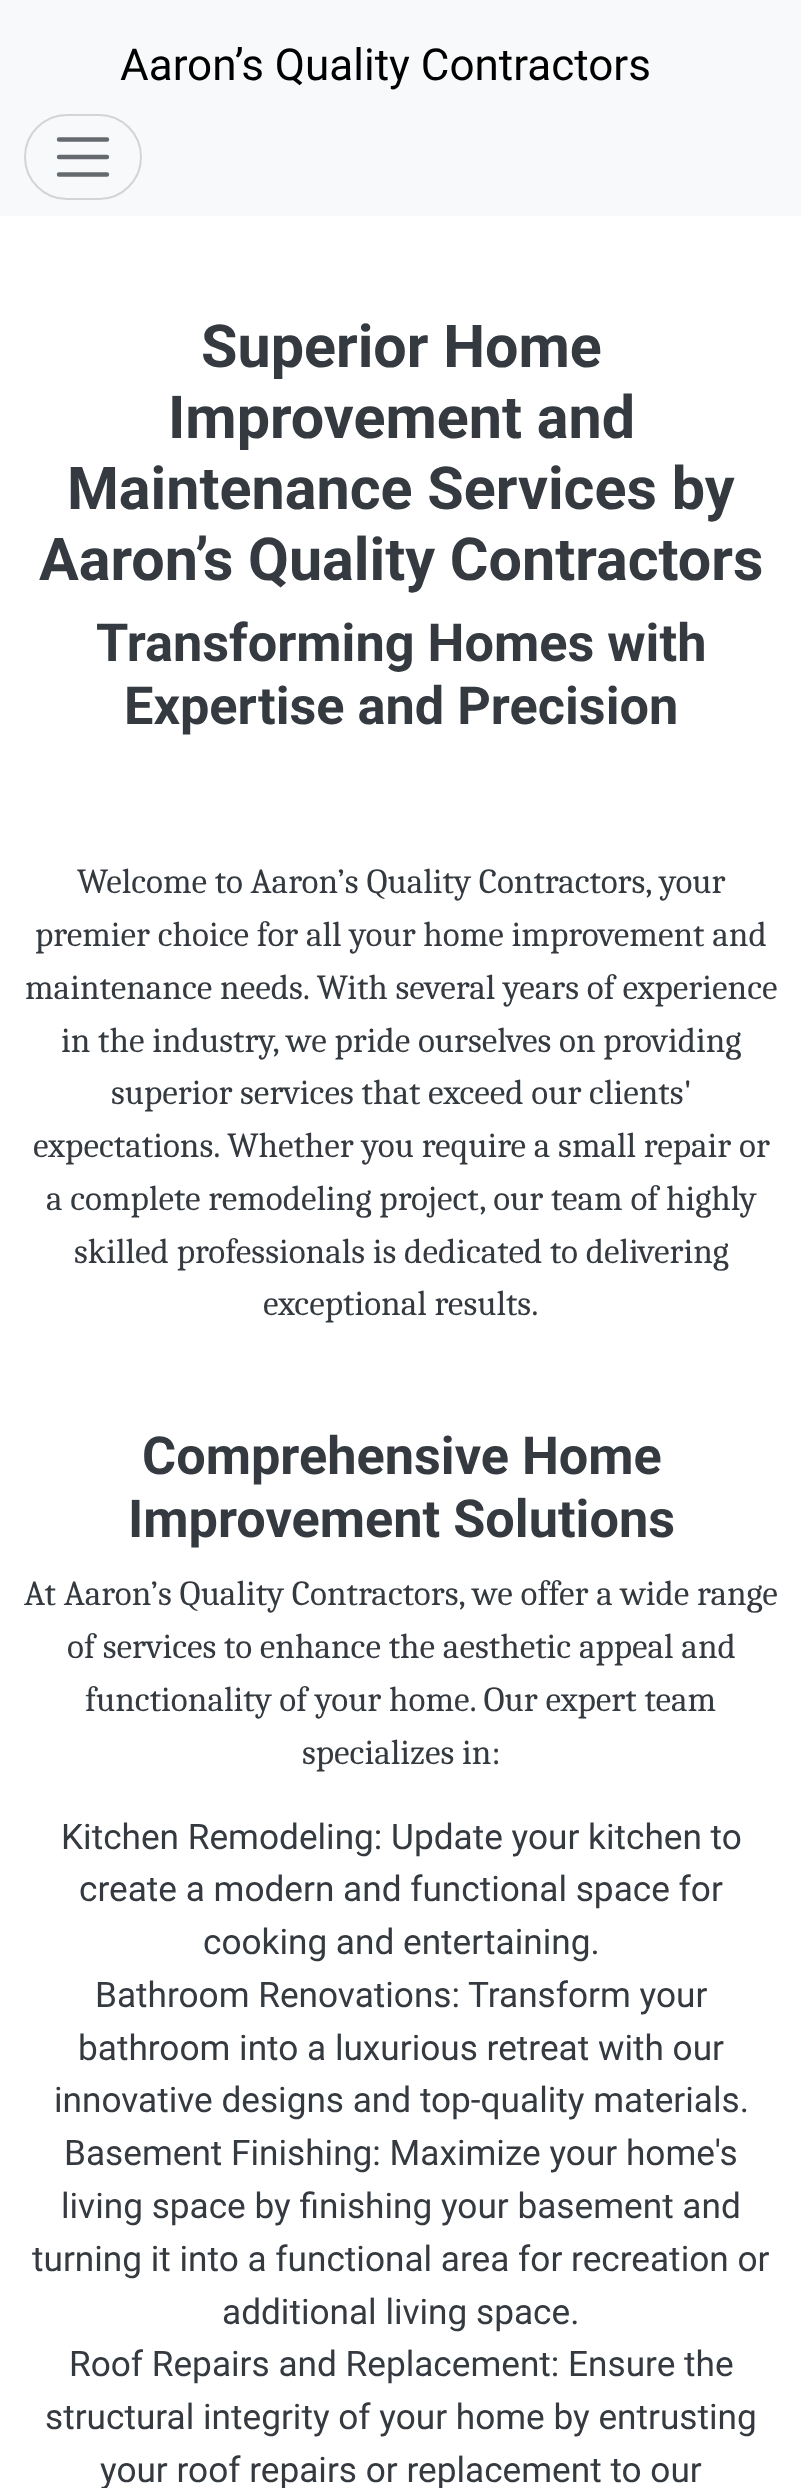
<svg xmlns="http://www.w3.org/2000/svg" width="801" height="2488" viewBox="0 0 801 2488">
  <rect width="100%" height="100%" fill="rgb(255,255,255)"/>
  <rect x="0" y="0" width="801" height="216" fill="rgb(248,249,250)"/>
  <text x="120" y="80" font-family="Roboto" font-size="44" fill="rgb(0,0,0)">Aaron’s Quality Contractors</text>
  <rect x="25" y="115" width="116" height="84" rx="42" fill="none" stroke="rgb(211,212,213)" stroke-width="2"/>
  <path d="M59 139.5H107M59 157H107M59 174.5H107" fill="none" stroke="rgb(101,106,111)" stroke-width="4.4" stroke-linecap="round"/>
  <g font-family="Roboto" font-size="59.25" font-weight="bold" fill="rgb(52,58,64)">
    <text x="201" y="367">Superior Home</text>
    <text x="168" y="438">Improvement and</text>
    <text x="67" y="509">Maintenance Services by</text>
    <text x="39" y="580">Aaron’s Quality Contractors</text>
  </g>
  <g font-family="Roboto" font-size="52.25" font-weight="bold" fill="rgb(52,58,64)">
    <text x="96" y="661">Transforming Homes with</text>
    <text x="124" y="724">Expertise and Precision</text>
  </g>
  <g font-family="Caladea" font-size="35.2" fill="rgb(52,58,64)">
    <text x="77" y="893">Welcome to Aaron’s Quality Contractors, your</text>
    <text x="35" y="946">premier choice for all your home improvement and</text>
    <text x="25" y="999">maintenance needs. With several years of experience</text>
    <text x="61" y="1052">in the industry, we pride ourselves on providing</text>
    <text x="111" y="1104">superior services that exceed our clients'</text>
    <text x="33" y="1157">expectations. Whether you require a small repair or</text>
    <text x="46" y="1210">a complete remodeling project, our team of highly</text>
    <text x="74" y="1263">skilled professionals is dedicated to delivering</text>
    <text x="263" y="1315">exceptional results.</text>
  </g>
  <g font-family="Roboto" font-size="52.25" font-weight="bold" fill="rgb(52,58,64)">
    <text x="142" y="1474">Comprehensive Home</text>
    <text x="128" y="1537">Improvement Solutions</text>
  </g>
  <g font-family="Caladea" font-size="35.2" fill="rgb(52,58,64)">
    <text x="24" y="1605">At Aaron’s Quality Contractors, we offer a wide range</text>
    <text x="67" y="1658">of services to enhance the aesthetic appeal and</text>
    <text x="85" y="1711">functionality of your home. Our expert team</text>
    <text x="302" y="1764">specializes in:</text>
  </g>
  <g font-family="Roboto" font-size="35.2" fill="rgb(52,58,64)">
    <text x="61" y="1849">Kitchen Remodeling: Update your kitchen to</text>
    <text x="79" y="1901">create a modern and functional space for</text>
    <text x="203" y="1954">cooking and entertaining.</text>
    <text x="95" y="2007">Bathroom Renovations: Transform your</text>
    <text x="78" y="2060">bathroom into a luxurious retreat with our</text>
    <text x="54" y="2112">innovative designs and top-quality materials.</text>
    <text x="64" y="2165">Basement Finishing: Maximize your home's</text>
    <text x="61" y="2218">living space by finishing your basement and</text>
    <text x="32" y="2271">turning it into a functional area for recreation or</text>
    <text x="222" y="2324">additional living space.</text>
    <text x="69" y="2376">Roof Repairs and Replacement: Ensure the</text>
    <text x="45" y="2429">structural integrity of your home by entrusting</text>
    <text x="100" y="2482">your roof repairs or replacement to our</text>
  </g>
</svg>
